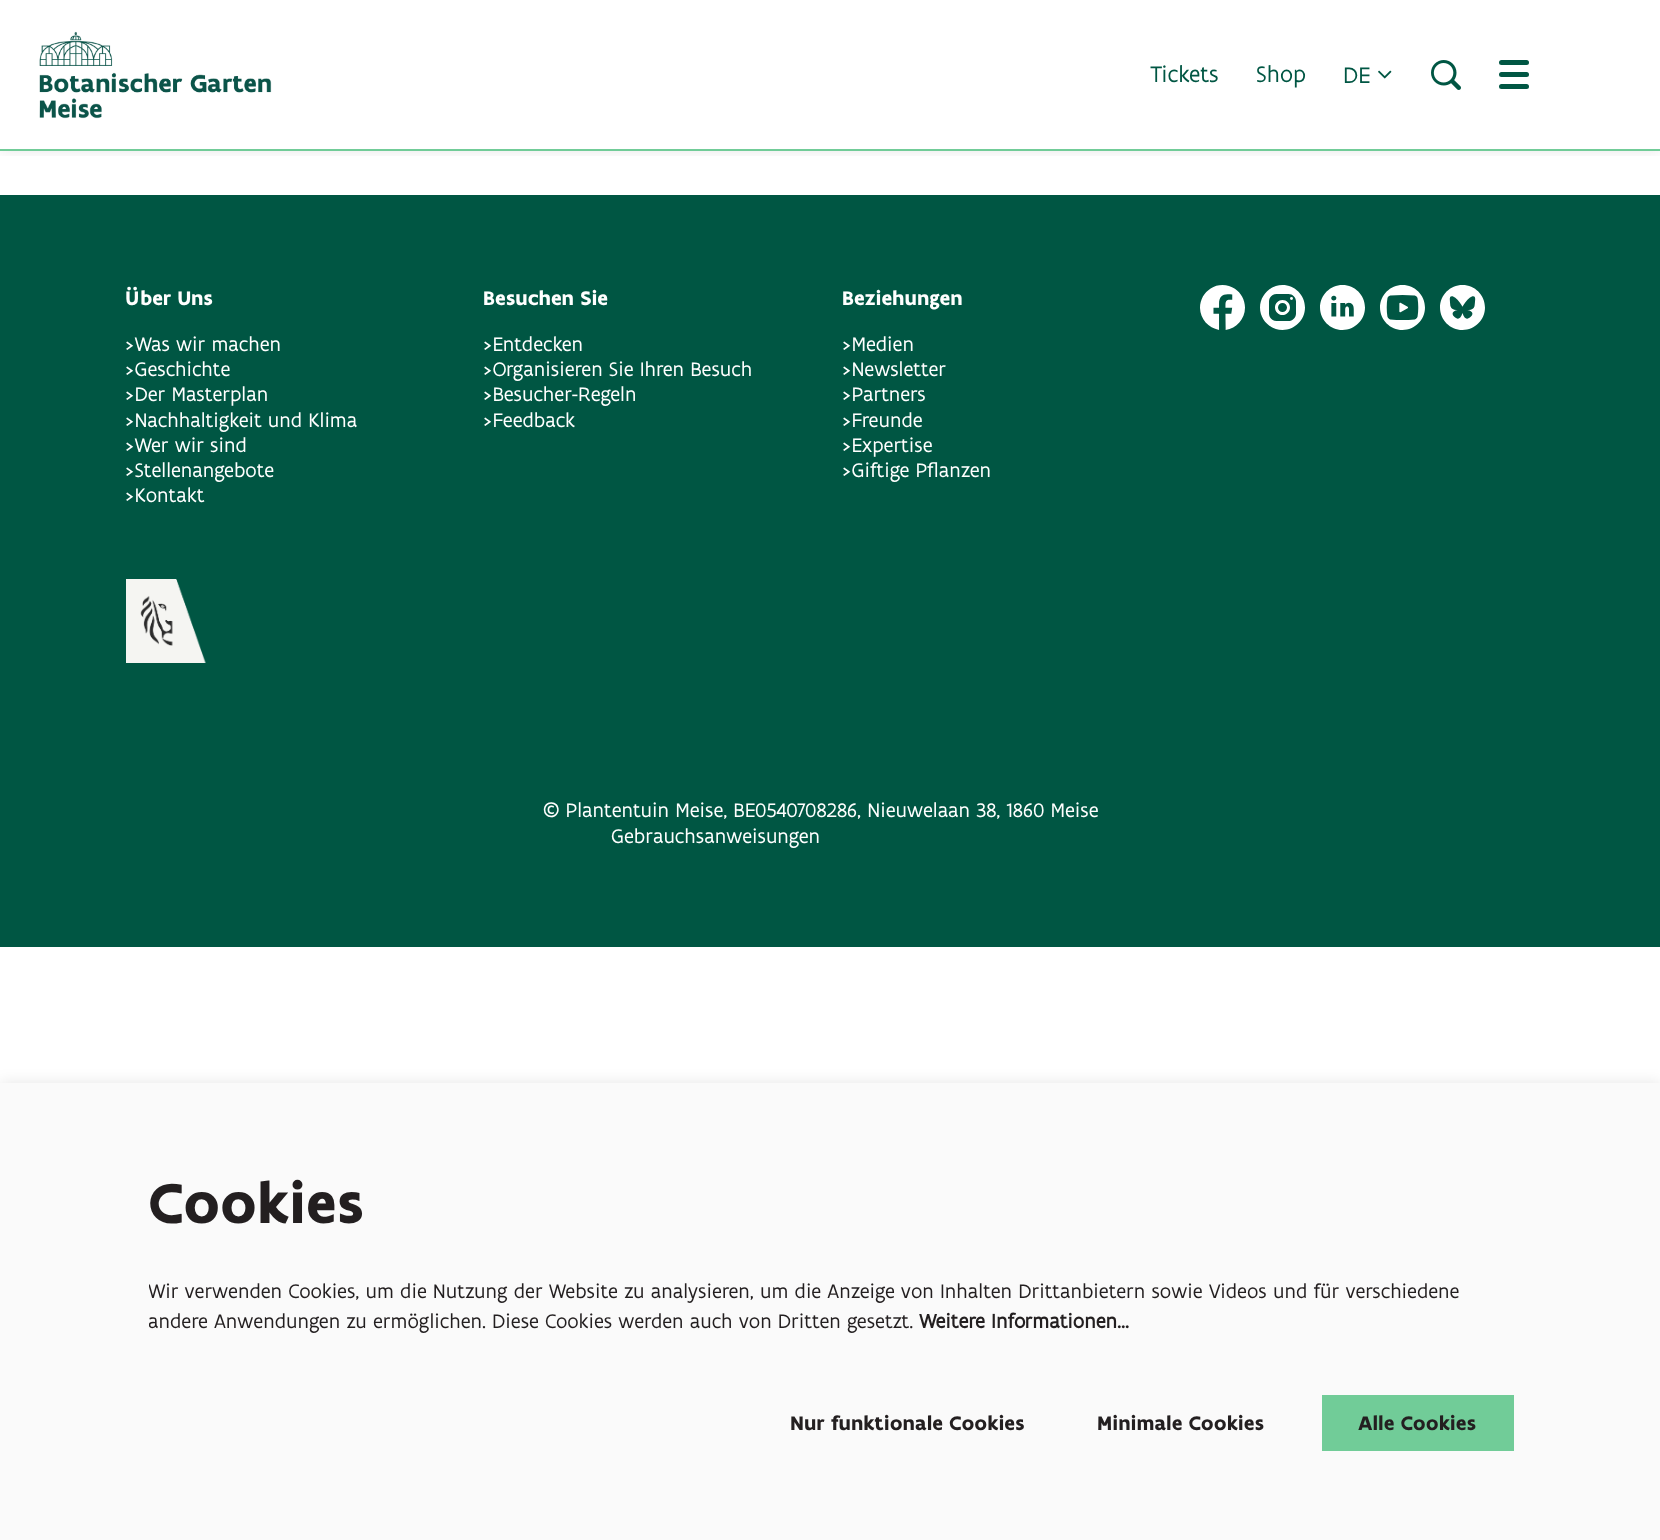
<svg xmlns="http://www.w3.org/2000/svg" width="1660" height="1540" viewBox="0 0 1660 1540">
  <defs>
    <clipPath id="clip1"><rect x="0" y="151" width="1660" height="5"/></clipPath>
    <clipPath id="clip2"><rect x="149" y="1278" width="1365" height="95"/></clipPath>
  </defs>
  <rect width="100%" height="100%" fill="rgb(255,255,255)"/>
  <g clip-path="url(#clip1)">
    <rect x="0" y="0" width="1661" height="150" fill="rgba(0,0,0,0.1)" filter="blur(7.5px)"/>
  </g>
  <rect x="0" y="149" width="1660" height="2" fill="rgb(113,204,152)"/>
  <image x="39" y="31" width="233" height="88" href="pic1.png"/>
  <g font-family="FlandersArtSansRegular" font-size="24" fill="rgb(0,86,67)">
    <text x="1150" y="82">Tickets</text>
    <text x="1256" y="82">Shop</text>
    <text x="1343" y="83">DE</text>
  </g>
  <image x="1378" y="70" width="14" height="9" href="pic2.png"/>
  <image x="1431" y="60" width="30" height="30" href="pic3.png"/>
  <rect x="1499" y="60" width="30" height="5" rx="2.5" fill="rgb(0,86,67)"/>
  <rect x="1499" y="72" width="30" height="5" rx="2.5" fill="rgb(0,86,67)"/>
  <rect x="1499" y="84" width="30" height="5" rx="2.5" fill="rgb(0,86,67)"/>
  <rect x="0" y="195" width="1660" height="752" fill="rgb(0,86,67)"/>
  <text x="125" y="305" font-family="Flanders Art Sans" font-size="21" font-weight="bold" fill="rgb(255,255,255)">Über Uns</text>
  <g font-family="FlandersArtSansRegular" font-size="21" fill="rgb(255,255,255)">
    <text>
      <tspan x="125" y="351">&gt;Was wir machen</tspan>
      <tspan x="125" y="376">&gt;Geschichte</tspan>
      <tspan x="125" y="401">&gt;Der Masterplan</tspan>
      <tspan x="125" y="427">&gt;Nachhaltigkeit und Klima</tspan>
      <tspan x="125" y="452">&gt;Wer wir sind</tspan>
      <tspan x="125" y="477">&gt;Stellenangebote</tspan>
      <tspan x="125" y="502">&gt;Kontakt</tspan>
    </text>
  </g>
  <image x="126" y="579" width="80" height="84" href="pic4.png"/>
  <text x="483" y="305" font-family="Flanders Art Sans" font-size="21" font-weight="bold" fill="rgb(255,255,255)">Besuchen Sie</text>
  <g font-family="FlandersArtSansRegular" font-size="21" fill="rgb(255,255,255)">
    <text>
      <tspan x="483" y="351">&gt;Entdecken</tspan>
      <tspan x="483" y="376">&gt;Organisieren Sie Ihren Besuch</tspan>
      <tspan x="483" y="401">&gt;Besucher-Regeln</tspan>
      <tspan x="483" y="427">&gt;Feedback</tspan>
    </text>
  </g>
  <text x="842" y="305" font-family="Flanders Art Sans" font-size="21" font-weight="bold" fill="rgb(255,255,255)">Beziehungen</text>
  <g font-family="FlandersArtSansRegular" font-size="21" fill="rgb(255,255,255)">
    <text>
      <tspan x="842" y="351">&gt;Medien</tspan>
      <tspan x="842" y="376">&gt;Newsletter</tspan>
      <tspan x="842" y="401">&gt;Partners</tspan>
      <tspan x="842" y="427">&gt;Freunde</tspan>
      <tspan x="842" y="452">&gt;Expertise</tspan>
      <tspan x="842" y="477">&gt;Giftige Pflanzen</tspan>
    </text>
  </g>
  <image x="1200" y="285" width="45" height="45" href="pic5.png"/>
  <image x="1260" y="285" width="45" height="45" href="pic6.png"/>
  <image x="1320" y="285" width="45" height="45" href="pic7.png"/>
  <image x="1380" y="285" width="45" height="45" href="pic8.png"/>
  <image x="1440" y="285" width="45" height="45" href="pic9.png"/>
  <g font-family="FlandersArtSansRegular" font-size="21" fill="rgb(255,255,255)">
    <text x="543" y="817">© Plantentuin Meise, BE0540708286, Nieuwelaan 38, 1860 Meise</text>
    <text x="611" y="843">Gebrauchsanweisungen</text>
  </g>
  <rect x="0" y="1083" width="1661" height="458" fill="rgba(0,0,0,0.1)" filter="blur(7.5px)"/>
  <rect x="0" y="1083" width="1660" height="457" fill="rgb(250,250,250)"/>
  <text x="148" y="1223" font-family="Flanders Art Sans" font-size="60" font-weight="bold" fill="rgb(35,31,32)">Cookies</text>
  <g clip-path="url(#clip2)">
    <g font-family="FlandersArtSansRegular" font-size="21" fill="rgb(35,31,32)">
      <text>
        <tspan x="148" y="1298">Wir verwenden Cookies, um die Nutzung der Website zu analysieren, um die Anzeige von Inhalten Drittanbietern sowie Videos und für verschiedene</tspan>
        <tspan x="148" y="1328">andere Anwendungen zu ermöglichen. Diese Cookies werden auch von Dritten gesetzt.</tspan>
      </text>
    </g>
  </g>
  <text x="919" y="1328" font-family="FlandersArtSansRegular" font-size="21" font-weight="bold" fill="rgb(35,31,32)">Weitere Informationen…</text>
  <g font-family="Flanders Art Sans" font-size="21" font-weight="bold" fill="rgb(35,31,32)">
    <text x="790" y="1430">Nur funktionale Cookies</text>
    <text x="1097" y="1430">Minimale Cookies</text>
  </g>
  <rect x="1322" y="1395" width="192" height="56" fill="rgb(113,204,152)"/>
  <text x="1358" y="1430" font-family="Flanders Art Sans" font-size="21" font-weight="bold" fill="rgb(35,31,32)">Alle Cookies</text>
</svg>
